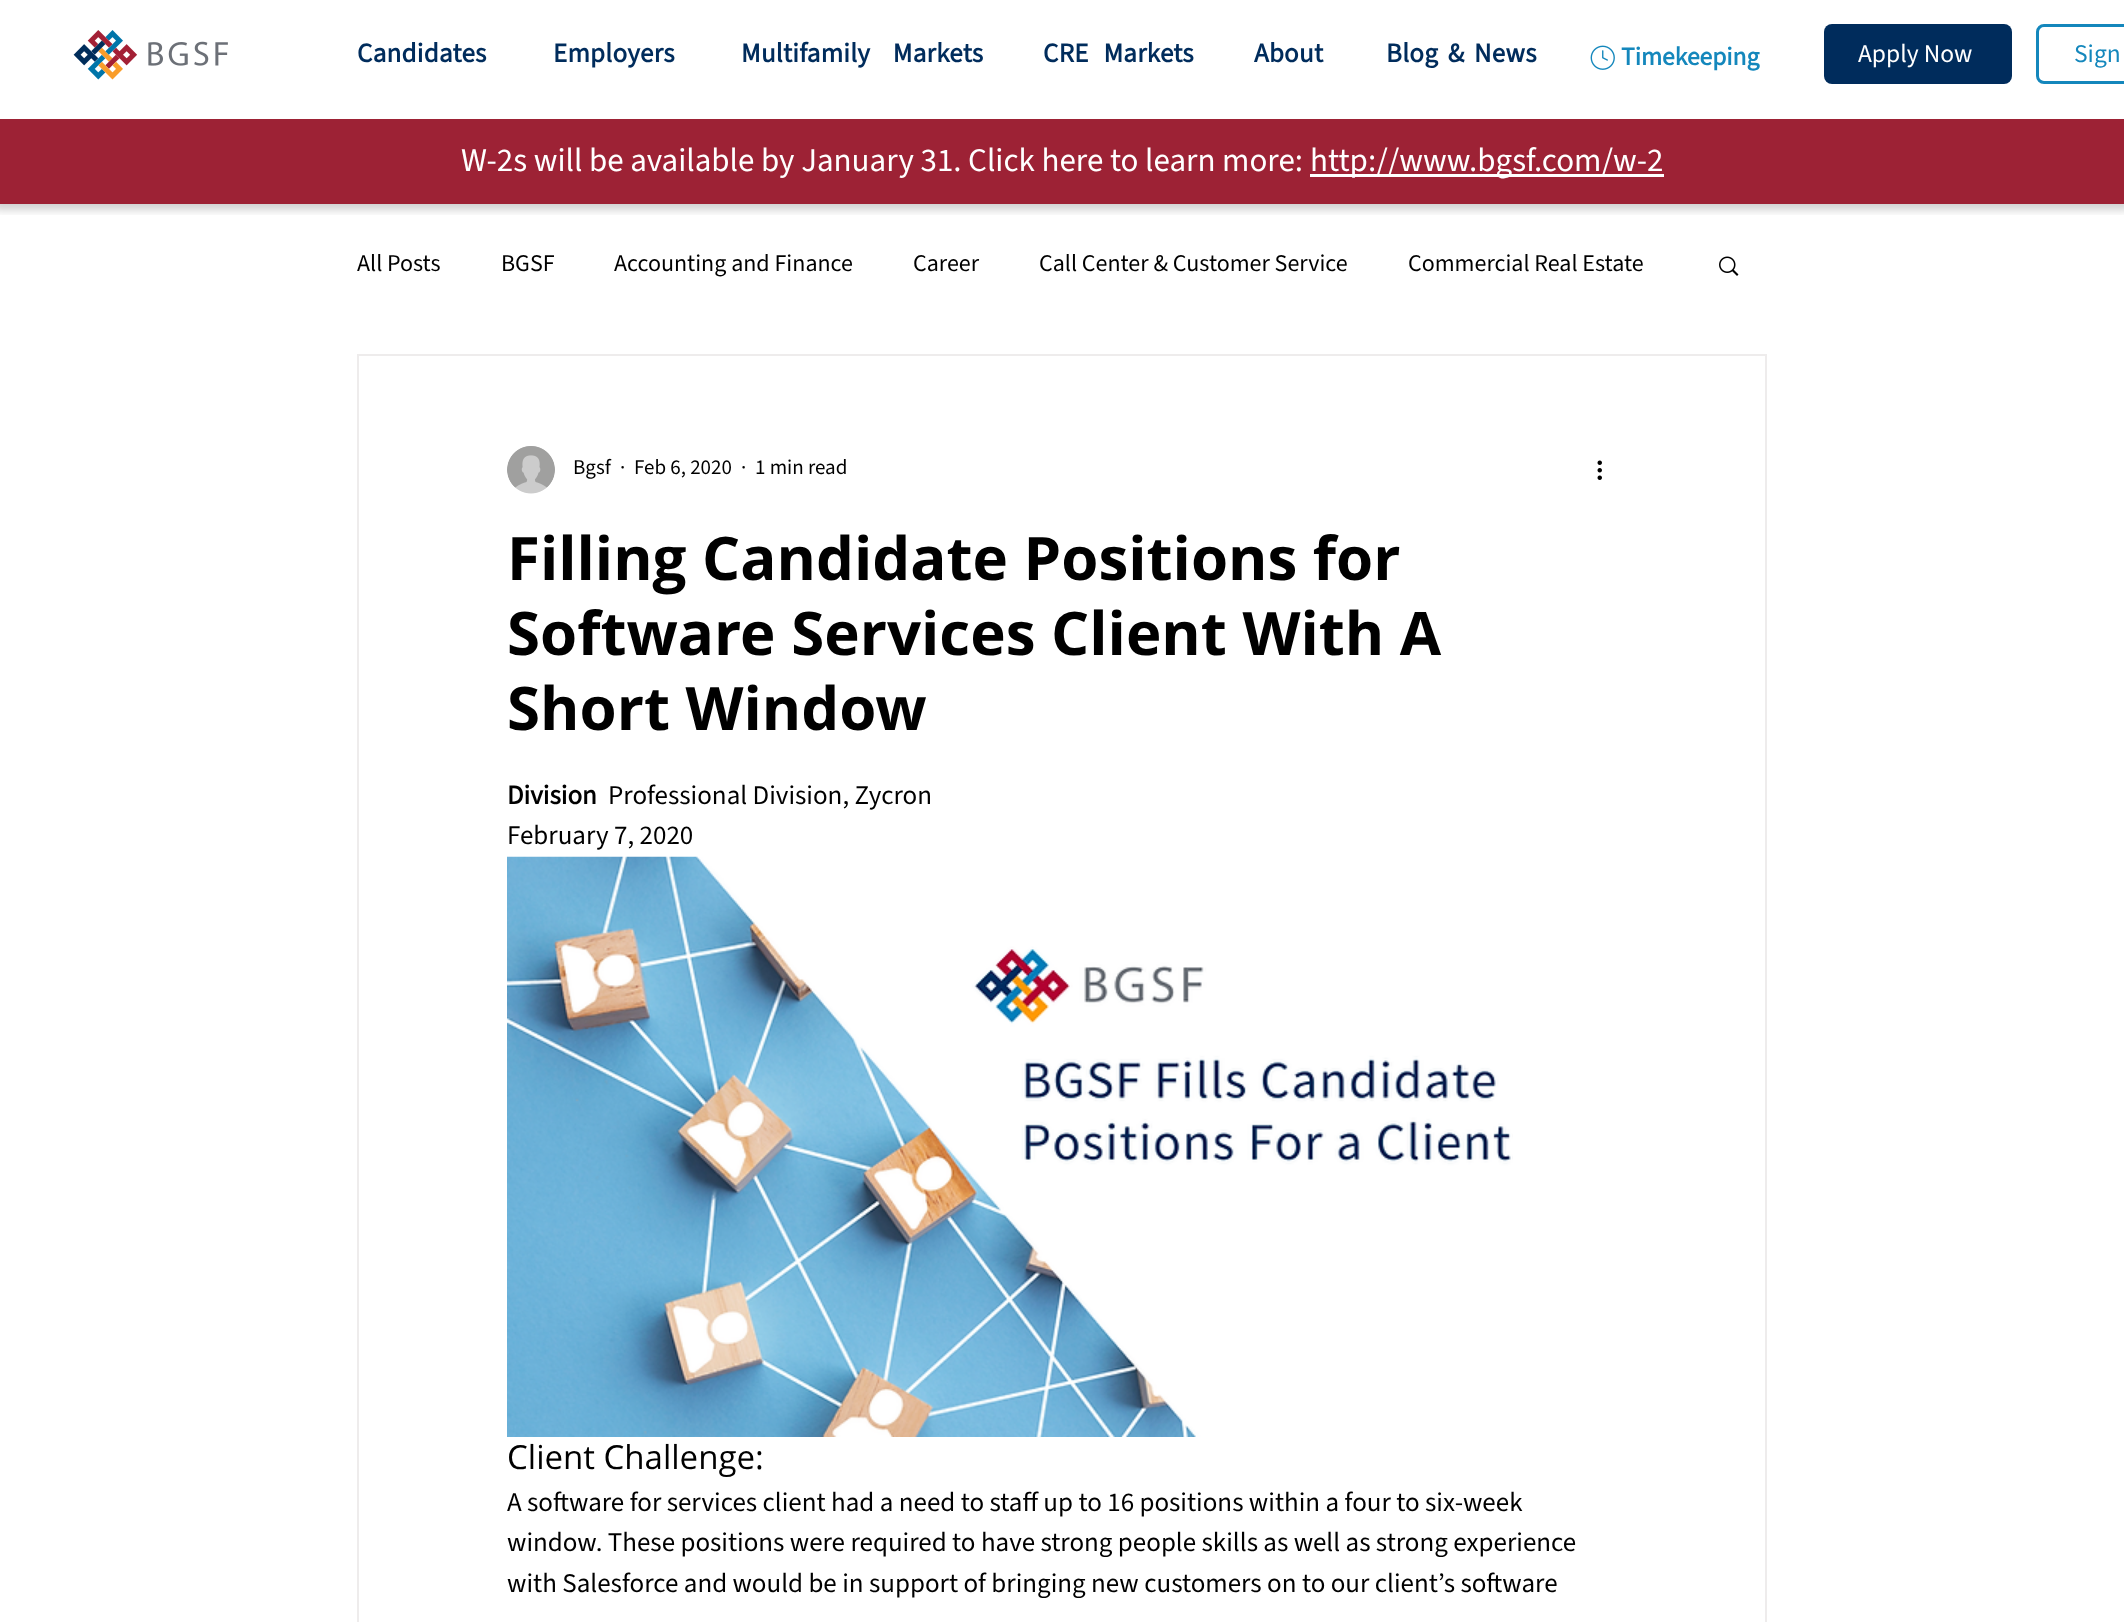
<svg xmlns="http://www.w3.org/2000/svg" width="2124" height="1622" viewBox="0 0 2124 1622">
  <defs>
    <clipPath id="clip1"><rect x="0" y="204" width="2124" height="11"/></clipPath>
  </defs>
  <rect width="100%" height="100%" fill="rgb(255,255,255)"/>
  <g clip-path="url(#clip1)">
    <rect x="-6" y="-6" width="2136" height="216" fill="rgba(0,0,0,0.18)" filter="blur(4px)"/>
  </g>
  <image x="73" y="30" width="155" height="50" href="pic1.png"/>
  <g font-family="'Source Sans 3'" font-size="27" font-weight="bold" letter-spacing="0.25" fill="rgb(0,44,92)">
    <text x="357" y="62">Candidates</text>
    <text x="553" y="62">Employers</text>
    <text x="741" y="62" word-spacing="17">Multifamily Markets</text>
    <text x="1043" y="62" word-spacing="9">CRE Markets</text>
    <text x="1254" y="62">About</text>
    <text x="1386" y="62" word-spacing="4">Blog &amp; News</text>
  </g>
  <image x="1590" y="45" width="25" height="25" href="pic2.png"/>
  <text x="1621" y="65" font-family="'Source Sans 3'" font-size="25.5" font-weight="bold" fill="rgb(20,135,188)">Timekeeping</text>
  <rect x="1824" y="24" width="188" height="60" rx="8" fill="rgb(0,44,92)"/>
  <text x="1858" y="62" font-family="'Source Sans 3'" font-size="25.5" fill="rgb(255,255,255)">Apply Now</text>
  <rect x="2037.5" y="25.5" width="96" height="57" rx="6.5" fill="none" stroke="rgb(20,135,188)" stroke-width="3"/>
  <text x="2074" y="62" font-family="'Source Sans 3'" font-size="25.5" fill="rgb(20,135,188)">Sign</text>
  <rect x="0" y="119" width="2124" height="85" fill="rgb(157,34,53)"/>
  <text x="461" y="171" font-family="'Source Sans 3'" font-size="33" fill="rgb(255,255,255)">W-2s will be available by January 31. Click here to learn more:</text>
  <rect x="1310" y="174" width="354" height="3" fill="rgb(255,255,255)"/>
  <text x="1310" y="171" font-family="'Source Sans 3'" font-size="33" fill="rgb(255,255,255)">http://www.bgsf.com/w-2</text>
  <g font-family="'Source Sans 3'" font-size="24" fill="rgb(0,0,0)">
    <text x="357" y="271">All Posts</text>
    <text x="501" y="271">BGSF</text>
    <text x="614" y="271">Accounting and Finance</text>
    <text x="913" y="271">Career</text>
    <text x="1039" y="271">Call Center &amp; Customer Service</text>
    <text x="1408" y="271">Commercial Real Estate</text>
  </g>
  <image x="1719" y="256" width="20" height="20" href="pic3.png"/>
  <rect x="358" y="355" width="1408" height="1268" fill="none" stroke="rgb(238,236,236)" stroke-width="2"/>
  <image x="507" y="446" width="48" height="48" href="pic4.png"/>
  <g font-family="'Source Sans 3'" font-size="21" fill="rgb(0,0,0)">
    <text x="573" y="474">Bgsf</text>
    <text x="620" y="474">·</text>
    <text x="634" y="474">Feb 6, 2020</text>
    <text x="741" y="474">·</text>
    <text x="755" y="474">1 min read</text>
  </g>
  <image x="1597" y="460" width="5" height="20" href="pic5.png"/>
  <g font-family="Open Sans" font-size="60" font-weight="bold" fill="rgb(0,0,0)">
    <text>
      <tspan x="507" y="580">Filling Candidate Positions for</tspan>
      <tspan x="507" y="655">Software Services Client With A</tspan>
      <tspan x="507" y="730">Short Window</tspan>
    </text>
  </g>
  <text x="507" y="804" font-family="'Source Sans 3'" font-size="27" font-weight="bold" fill="rgb(0,0,0)">Division</text>
  <g font-family="'Source Sans 3'" font-size="27" fill="rgb(0,0,0)">
    <text x="608" y="804">Professional Division, Zycron</text>
    <text x="507" y="844">February 7, 2020</text>
  </g>
  <image x="507" y="856" width="1006" height="581" href="pic6.png"/>
  <text x="507" y="1469" font-family="Open Sans" font-size="33" fill="rgb(0,0,0)">Client Challenge:</text>
  <g font-family="'Source Sans 3'" font-size="27" fill="rgb(0,0,0)">
    <text>
      <tspan x="507" y="1511">A software for services client had a need to staff up to 16 positions within a four to six-week</tspan>
      <tspan x="507" y="1551">window. These positions were required to have strong people skills as well as strong experience</tspan>
      <tspan x="507" y="1592">with Salesforce and would be in support of bringing new customers on to our client’s software</tspan>
    </text>
  </g>
</svg>
